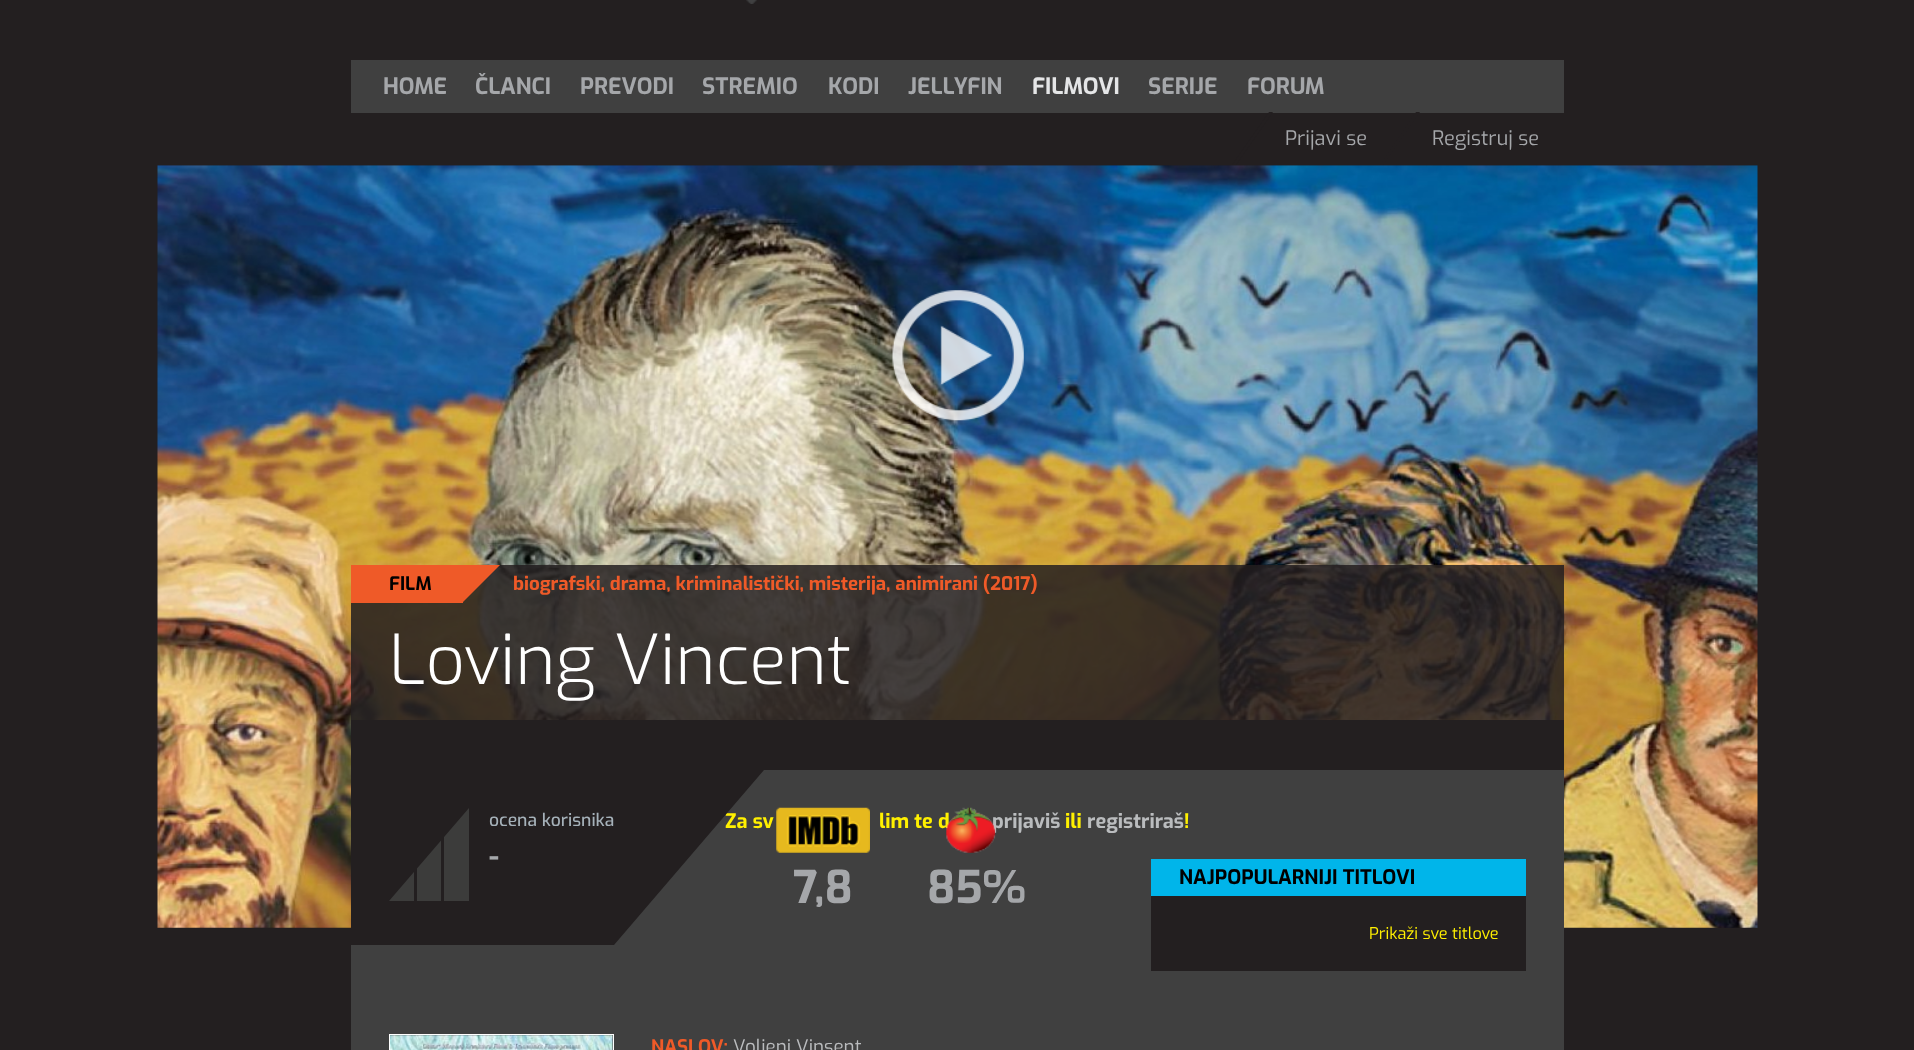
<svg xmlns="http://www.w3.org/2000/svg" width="1914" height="1050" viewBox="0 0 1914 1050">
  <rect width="100%" height="100%" fill="rgb(35,31,32)"/>
  <image x="746" y="0" width="11" height="4" href="pic1.png"/>
  <rect x="351" y="60" width="1213" height="53" fill="rgb(64,64,64)"/>
  <g font-family="Exo" font-size="22.5" font-weight="bold" fill="rgb(165,167,170)">
    <text x="383" y="94">HOME</text>
    <text x="475" y="94">ČLANCI</text>
    <text x="580" y="94">PREVODI</text>
    <text x="702" y="94">STREMIO</text>
    <text x="828" y="94">KODI</text>
    <text x="908" y="94">JELLYFIN</text>
  </g>
  <text x="1032" y="94" font-family="Exo" font-size="22.5" font-weight="bold" fill="rgb(229,230,231)">FILMOVI</text>
  <g font-family="Exo" font-size="22.5" font-weight="bold" fill="rgb(165,167,170)">
    <text x="1148" y="94">SERIJE</text>
    <text x="1247" y="94">FORUM</text>
  </g>
  <path d="M1269 112H1273L1236 165H1232Z" fill="rgb(35,31,32)"/>
  <text x="1285" y="145" font-family="Exo" font-size="20" fill="rgb(165,167,170)">Prijavi se</text>
  <path d="M1416 112H1420L1383 165H1380Z" fill="rgb(35,31,32)"/>
  <text x="1432" y="145" font-family="Exo" font-size="20" fill="rgb(165,167,170)">Registruj se</text>
  <image x="157" y="165" width="1601" height="763" href="pic2.png"/>
  <image x="892" y="290" width="132" height="131" href="pic3.png"/>
  <rect x="351" y="565" width="1213" height="155" fill="rgba(35,31,32,0.85)"/>
  <rect x="351" y="565" width="112" height="38" fill="rgb(239,90,40)"/>
  <text x="389" y="590" font-family="Exo" font-size="18.75" font-weight="bold" fill="rgb(0,0,0)">FILM</text>
  <path d="M462.5 565H500L462.5 602.5Z" fill="rgb(239,90,40)"/>
  <text x="513" y="590" font-family="Exo" font-size="18.75" font-weight="bold" fill="rgb(239,90,40)">biografski, drama, kriminalistički, misterija, animirani (2017)</text>
  <text x="389" y="684" font-family="Exo" font-size="68.75" font-weight="300" fill="rgb(255,255,255)">Loving Vincent</text>
  <rect x="351" y="770" width="1213" height="280" fill="rgb(64,64,64)"/>
  <rect x="351" y="720" width="1213" height="50" fill="rgb(35,31,32)"/>
  <rect x="351" y="770" width="263" height="175" fill="rgb(35,31,32)"/>
  <rect x="389" y="808" width="80" height="93" fill="rgb(60,60,59)"/>
  <rect x="414" y="868" width="3" height="33" fill="rgb(35,31,32)"/>
  <rect x="441" y="837" width="3" height="64" fill="rgb(35,31,32)"/>
  <path d="M389 808H469L389 901Z" fill="rgb(35,31,32)"/>
  <text x="489" y="826" font-family="Exo" font-size="17.5" font-weight="500" fill="rgb(165,177,185)">ocena korisnika</text>
  <text x="489" y="866" font-family="Exo" font-size="28" font-weight="bold" fill="rgb(165,167,170)">-</text>
  <text x="725" y="828" font-family="Exo" font-size="20" font-weight="bold" fill="rgb(255,240,0)">Za sv</text>
  <path d="M614 770H764L614 945Z" fill="rgb(35,31,32)"/>
  <image x="776" y="807" width="94" height="46" href="pic4.png"/>
  <text x="793" y="903" font-family="Exo" font-size="45" font-weight="bold" fill="rgb(165,167,170)">7,8</text>
  <text x="879" y="828" font-family="Exo" font-size="20" font-weight="bold" fill="rgb(255,240,0)">lim te d</text>
  <text x="992" y="828" font-family="Exo" font-size="20" font-weight="bold" fill="rgb(186,188,190)">prijaviš</text>
  <image x="946" y="807" width="50" height="46" href="pic5.png"/>
  <text x="927" y="903" font-family="Exo" font-size="45" font-weight="bold" fill="rgb(165,167,170)">85%</text>
  <rect x="389.5" y="1034.5" width="224" height="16" fill="none" stroke="rgb(255,255,255)"/>
  <image x="390" y="1035" width="223" height="15" href="pic6.png"/>
  <text x="651" y="1053" font-family="Exo" font-size="18.75" font-weight="bold" fill="rgb(239,90,40)">NASLOV:</text>
  <text x="733" y="1053" font-family="Exo" font-size="18.75" fill="rgb(186,188,190)">Voljeni Vinsent</text>
  <text x="1065" y="828" font-family="Exo" font-size="20" font-weight="bold" fill="rgb(255,240,0)">ili</text>
  <text x="1087" y="828" font-family="Exo" font-size="20" font-weight="bold" fill="rgb(186,188,190)">registriraš</text>
  <text x="1184" y="828" font-family="Exo" font-size="20" font-weight="bold" fill="rgb(255,240,0)">!</text>
  <rect x="1151" y="896" width="375" height="75" fill="rgb(35,31,32)"/>
  <rect x="1151" y="859" width="375" height="37" fill="rgb(0,181,234)"/>
  <text x="1179" y="884" font-family="Exo" font-size="20" font-weight="bold" fill="rgb(0,0,0)">NAJPOPULARNIJI TITLOVI</text>
  <text x="1369" y="939" font-family="Exo" font-size="16.25" fill="rgb(255,240,0)">Prikaži sve titlove</text>
</svg>
